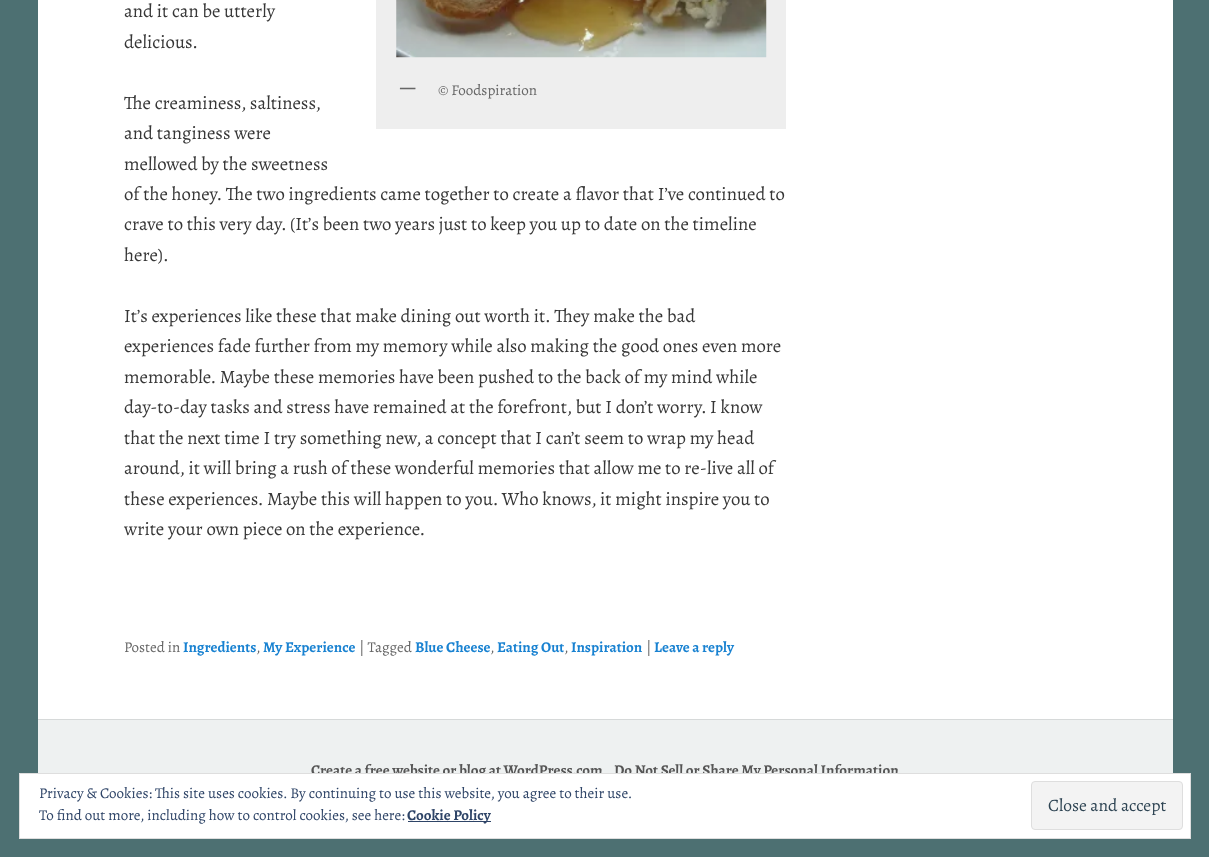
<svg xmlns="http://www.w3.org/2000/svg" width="1209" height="857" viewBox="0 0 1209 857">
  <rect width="100%" height="100%" fill="rgb(77,112,114)"/>
  <rect x="38" y="0" width="1135" height="719" fill="rgb(255,255,255)"/>
  <g font-family="Alegreya" font-size="18.75" fill="rgb(55,55,55)">
    <text>
      <tspan x="124" y="17">and it can be utterly</tspan>
      <tspan x="124" y="48">delicious.</tspan>
    </text>
  </g>
  <rect x="376" y="0" width="410" height="129" fill="rgb(238,238,238)"/>
  <image x="396" y="0" width="371" height="58" href="pic1.png"/>
  <text x="400" y="93" font-family="Alegreya" font-size="17.5" font-weight="bold" fill="rgb(102,102,102)">—</text>
  <text x="438" y="95" font-family="Alegreya" font-size="15" fill="rgb(102,102,102)">© Foodspiration</text>
  <g font-family="Alegreya" font-size="18.75" fill="rgb(55,55,55)">
    <text>
      <tspan x="124" y="109">The creaminess, saltiness,</tspan>
      <tspan x="124" y="139">and tanginess were</tspan>
      <tspan x="124" y="170">mellowed by the sweetness</tspan>
      <tspan x="124" y="200">of the honey. The two ingredients came together to create a flavor that I’ve continued to</tspan>
      <tspan x="124" y="230">crave to this very day. (It’s been two years just to keep you up to date on the timeline</tspan>
      <tspan x="124" y="261">here).</tspan>
    </text>
    <text>
      <tspan x="124" y="322">It’s experiences like these that make dining out worth it. They make the bad</tspan>
      <tspan x="124" y="352">experiences fade further from my memory while also making the good ones even more</tspan>
      <tspan x="124" y="383">memorable. Maybe these memories have been pushed to the back of my mind while</tspan>
      <tspan x="124" y="413">day-to-day tasks and stress have remained at the forefront, but I don’t worry. I know</tspan>
      <tspan x="124" y="444">that the next time I try something new, a concept that I can’t seem to wrap my head</tspan>
      <tspan x="124" y="474">around, it will bring a rush of these wonderful memories that allow me to re-live all of</tspan>
      <tspan x="124" y="505">these experiences. Maybe this will happen to you. Who knows, it might inspire you to</tspan>
      <tspan x="124" y="535">write your own piece on the experience.</tspan>
    </text>
  </g>
  <text x="124" y="652" font-family="Alegreya" font-size="15" fill="rgb(102,102,102)">Posted in</text>
  <text x="183" y="652" font-family="Alegreya" font-size="15" font-weight="bold" fill="rgb(25,130,209)">Ingredients</text>
  <text x="256" y="652" font-family="Alegreya" font-size="15" fill="rgb(102,102,102)">,</text>
  <text x="263" y="652" font-family="Alegreya" font-size="15" font-weight="bold" fill="rgb(25,130,209)">My Experience</text>
  <text x="359" y="652" font-family="Alegreya" font-size="15" fill="rgb(102,102,102)">| Tagged</text>
  <text x="415" y="652" font-family="Alegreya" font-size="15" font-weight="bold" fill="rgb(25,130,209)">Blue Cheese</text>
  <text x="490" y="652" font-family="Alegreya" font-size="15" fill="rgb(102,102,102)">,</text>
  <text x="497" y="652" font-family="Alegreya" font-size="15" font-weight="bold" fill="rgb(25,130,209)">Eating Out</text>
  <text x="564" y="652" font-family="Alegreya" font-size="15" fill="rgb(102,102,102)">,</text>
  <text x="571" y="652" font-family="Alegreya" font-size="15" font-weight="bold" fill="rgb(25,130,209)">Inspiration</text>
  <text x="646" y="652" font-family="Alegreya" font-size="15" fill="rgb(102,102,102)">|</text>
  <text x="654" y="652" font-family="Alegreya" font-size="15" font-weight="bold" fill="rgb(25,130,209)">Leave a reply</text>
  <rect x="38" y="720" width="1135" height="53" fill="rgb(238,241,241)"/>
  <rect x="38" y="719" width="1135" height="1" fill="rgb(214,217,217)"/>
  <g font-family="Alegreya" font-size="15" font-weight="bold" fill="rgb(85,85,85)">
    <text x="311" y="775">Create a free website or blog at WordPress.com</text>
    <text x="614" y="775">Do Not Sell or Share My Personal Information</text>
  </g>
  <rect x="19.5" y="773.5" width="1171" height="65" fill="rgb(255,255,255)" stroke="rgb(222,222,222)"/>
  <g font-family="Alegreya" font-size="15" fill="rgb(46,68,103)">
    <text>
      <tspan x="39" y="798">Privacy &amp; Cookies: This site uses cookies. By continuing to use this website, you agree to their use.</tspan>
      <tspan x="39" y="820">To find out more, including how to control cookies, see here:</tspan>
    </text>
  </g>
  <rect x="408" y="821" width="83" height="1" fill="rgb(46,68,103)"/>
  <text x="407" y="820" font-family="Alegreya" font-size="15" font-weight="bold" fill="rgb(46,68,103)">Cookie Policy</text>
  <rect x="1031.5" y="781.5" width="151" height="48" rx="3.5" fill="rgb(243,243,243)" stroke="rgb(222,222,222)"/>
  <text x="1048" y="811" font-family="Alegreya" font-size="17.5" fill="rgb(46,68,83)">Close and accept</text>
</svg>
